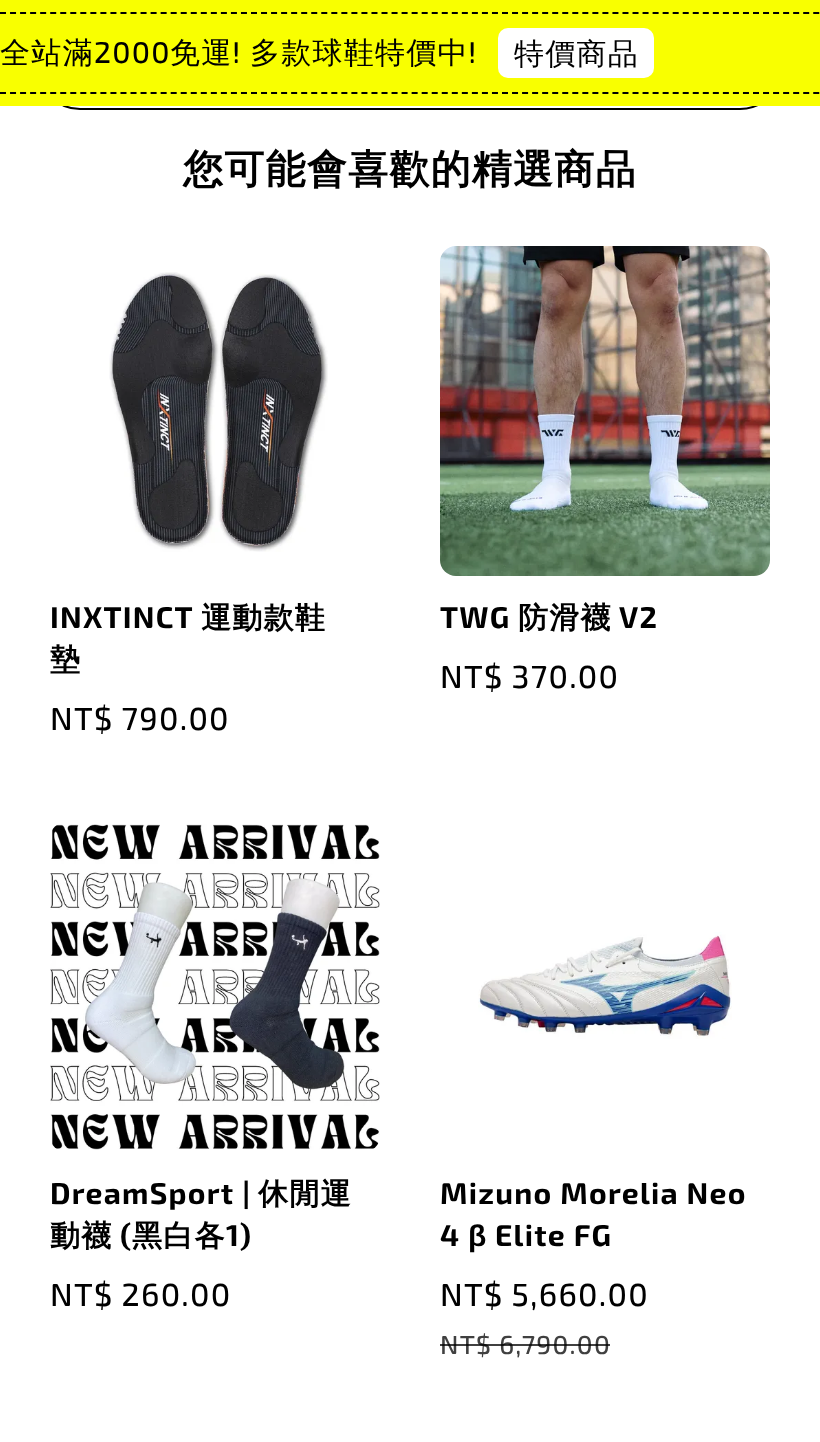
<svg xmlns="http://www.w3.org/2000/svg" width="820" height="1442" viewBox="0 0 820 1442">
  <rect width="100%" height="100%" fill="rgb(255,255,255)"/>
  <rect x="39" y="27" width="742" height="82" rx="41" fill="none" stroke="rgb(0,0,0)" stroke-width="2"/>
  <rect x="0" y="0" width="820" height="106" fill="rgb(249,255,0)"/>
  <path d="M0 13H820" fill="none" stroke="rgb(0,0,0)" stroke-width="2" stroke-dasharray="6 4.04"/>
  <path d="M0 93H820" fill="none" stroke="rgb(0,0,0)" stroke-width="2" stroke-dasharray="6 4.04"/>
  <text x="0" y="63" font-family="WenQuanYi Zen Hei" font-size="30" font-weight="500" letter-spacing="1.25" fill="rgb(0,0,0)">全站滿</text>
  <text x="94" y="63" font-family="'Exo 2'" font-size="30" font-weight="500" letter-spacing="1.25" fill="rgb(0,0,0)">2000</text>
  <text x="170" y="63" font-family="WenQuanYi Zen Hei" font-size="30" font-weight="500" letter-spacing="1.25" fill="rgb(0,0,0)">免運</text>
  <text x="232" y="63" font-family="'Exo 2'" font-size="30" font-weight="500" letter-spacing="1.25" fill="rgb(0,0,0)">!</text>
  <text x="250" y="63" font-family="WenQuanYi Zen Hei" font-size="30" font-weight="500" letter-spacing="1.25" fill="rgb(0,0,0)">多款球鞋特價中</text>
  <text x="468" y="63" font-family="'Exo 2'" font-size="30" font-weight="500" letter-spacing="1.25" fill="rgb(0,0,0)">!</text>
  <rect x="498" y="28" width="156" height="50" rx="10" fill="rgb(255,255,255)"/>
  <text x="514" y="64" font-family="WenQuanYi Zen Hei" font-size="30" font-weight="500" letter-spacing="1.25" fill="rgb(0,0,0)">特價商品</text>
  <text x="183" y="183" font-family="WenQuanYi Zen Hei" font-size="40" font-weight="bold" letter-spacing="1.25" fill="rgb(0,0,0)">您可能會喜歡的精選商品</text>
  <image x="109" y="272" width="219" height="280" href="pic1.png"/>
  <text x="50" y="628" font-family="'Exo 2'" font-size="30" font-weight="bold" letter-spacing="1.25" fill="rgb(0,0,0)">INXTINCT</text>
  <g font-family="WenQuanYi Zen Hei" font-size="30" font-weight="bold" letter-spacing="1.25" fill="rgb(0,0,0)">
    <text x="201" y="628">運動款鞋</text>
    <text x="50" y="670">墊</text>
  </g>
  <text x="50" y="730" font-family="'Exo 2'" font-size="32" font-weight="500" letter-spacing="1.25" fill="rgb(0,0,0)">NT$ 790.00</text>
  <image x="440" y="246" width="330" height="330" href="pic2.png"/>
  <text x="440" y="628" font-family="'Exo 2'" font-size="30" font-weight="bold" letter-spacing="1.25" fill="rgb(0,0,0)">TWG</text>
  <text x="518" y="628" font-family="WenQuanYi Zen Hei" font-size="30" font-weight="bold" letter-spacing="1.25" fill="rgb(0,0,0)">防滑襪</text>
  <text x="619" y="628" font-family="'Exo 2'" font-size="30" font-weight="bold" letter-spacing="1.25" fill="rgb(0,0,0)">V2</text>
  <text x="440" y="688" font-family="'Exo 2'" font-size="32" font-weight="500" letter-spacing="1.25" fill="rgb(0,0,0)">NT$ 370.00</text>
  <image x="50" y="824" width="330" height="326" href="pic3.png"/>
  <text x="50" y="1204" font-family="'Exo 2'" font-size="30" font-weight="bold" letter-spacing="1.25" fill="rgb(0,0,0)">DreamSport |</text>
  <g font-family="WenQuanYi Zen Hei" font-size="30" font-weight="bold" letter-spacing="1.25" fill="rgb(0,0,0)">
    <text x="258" y="1204">休閒運</text>
    <text x="50" y="1246">動襪</text>
  </g>
  <text x="120" y="1246" font-family="'Exo 2'" font-size="30" font-weight="bold" letter-spacing="1.25" fill="rgb(0,0,0)">(</text>
  <text x="132" y="1246" font-family="WenQuanYi Zen Hei" font-size="30" font-weight="bold" letter-spacing="1.25" fill="rgb(0,0,0)">黑白各</text>
  <text x="226" y="1246" font-family="'Exo 2'" font-size="30" font-weight="bold" letter-spacing="1.25" fill="rgb(0,0,0)">1)</text>
  <text x="50" y="1306" font-family="'Exo 2'" font-size="32" font-weight="500" letter-spacing="1.25" fill="rgb(0,0,0)">NT$ 260.00</text>
  <image x="478" y="932" width="254" height="107" href="pic4.png"/>
  <g font-family="'Exo 2'" font-size="30" font-weight="bold" letter-spacing="1.25" fill="rgb(0,0,0)">
    <text>
      <tspan x="440" y="1204">Mizuno Morelia Neo</tspan>
      <tspan x="440" y="1246">4</tspan>
    </text>
  </g>
  <text x="468" y="1246" font-family="Liberation Sans" font-size="30" font-weight="bold" letter-spacing="1.25" fill="rgb(0,0,0)">β</text>
  <text x="495" y="1246" font-family="'Exo 2'" font-size="30" font-weight="bold" letter-spacing="1.25" fill="rgb(0,0,0)">Elite FG</text>
  <text x="440" y="1306" font-family="'Exo 2'" font-size="32" font-weight="500" letter-spacing="1.25" fill="rgb(0,0,0)">NT$ 5,660.00</text>
  <text x="440" y="1354" font-family="'Exo 2'" font-size="26" font-weight="500" letter-spacing="1.25" fill="rgb(64,64,64)">NT$ 6,790.00</text>
  <rect x="440" y="1344" width="170" height="2" fill="rgba(0,0,0,0.75)"/>
</svg>
